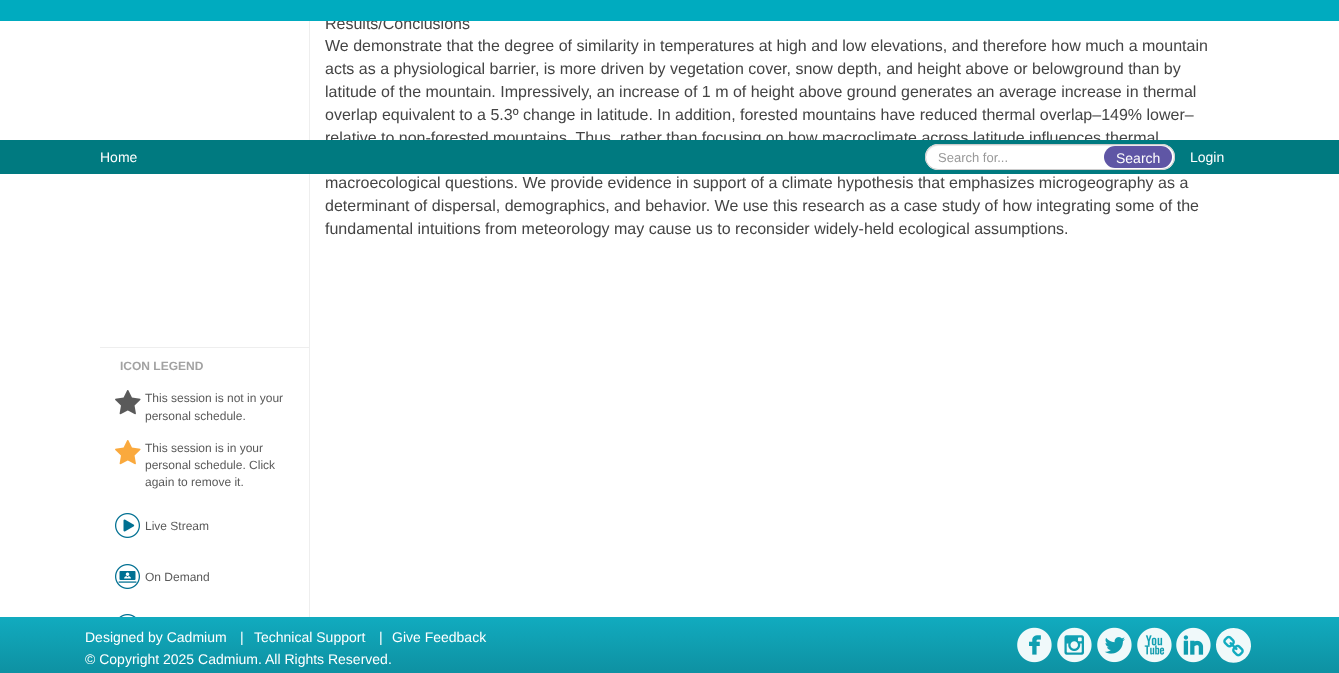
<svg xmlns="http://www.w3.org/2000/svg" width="1339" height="673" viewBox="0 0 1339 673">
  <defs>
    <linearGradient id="g1" gradientUnits="userSpaceOnUse" x1="670" y1="617" x2="670" y2="673"><stop offset="0" stop-color="rgb(17,171,191)"/><stop offset="1" stop-color="rgb(14,145,162)"/></linearGradient>
  </defs>
  <rect width="100%" height="100%" fill="rgb(255,255,255)"/>
  <text x="325" y="29" font-family="Liberation Sans" font-size="16" fill="rgb(68,68,68)">Results/Conclusions</text>
  <rect x="0" y="0" width="1339" height="21" fill="rgb(0,171,191)"/>
  <g font-family="Liberation Sans" font-size="16" fill="rgb(68,68,68)">
    <text>
      <tspan x="325" y="51">We demonstrate that the degree of similarity in temperatures at high and low elevations, and therefore how much a mountain</tspan>
      <tspan x="325" y="74">acts as a physiological barrier, is more driven by vegetation cover, snow depth, and height above or belowground than by</tspan>
      <tspan x="325" y="97">latitude of the mountain. Impressively, an increase of 1 m of height above ground generates an average increase in thermal</tspan>
      <tspan x="325" y="120">overlap equivalent to a 5.3º change in latitude. In addition, forested mountains have reduced thermal overlap–149% lower–</tspan>
      <tspan x="325" y="143">relative to non-forested mountains. Thus, rather than focusing on how macroclimate across latitude influences thermal</tspan>
    </text>
    <text>
      <tspan x="325" y="188">macroecological questions. We provide evidence in support of a climate hypothesis that emphasizes microgeography as a</tspan>
      <tspan x="325" y="211">determinant of dispersal, demographics, and behavior. We use this research as a case study of how integrating some of the</tspan>
      <tspan x="325" y="234">fundamental intuitions from meteorology may cause us to reconsider widely-held ecological assumptions.</tspan>
    </text>
  </g>
  <rect x="309" y="21" width="1" height="596" fill="rgb(238,238,238)"/>
  <rect x="100" y="347" width="209" height="1" fill="rgb(238,238,238)"/>
  <text x="120" y="370" font-family="Liberation Sans" font-size="12" font-weight="bold" fill="rgb(162,162,162)">ICON LEGEND</text>
  <image x="115" y="390" width="26" height="25" href="pic1.png"/>
  <g font-family="Liberation Sans" font-size="12" fill="rgb(90,90,90)">
    <text>
      <tspan x="145" y="402">This session is not in your</tspan>
      <tspan x="145" y="420">personal schedule.</tspan>
    </text>
  </g>
  <image x="115" y="440" width="26" height="25" href="pic2.png"/>
  <g font-family="Liberation Sans" font-size="12" fill="rgb(90,90,90)">
    <text>
      <tspan x="145" y="452">This session is in your</tspan>
      <tspan x="145" y="469">personal schedule. Click</tspan>
      <tspan x="145" y="486">again to remove it.</tspan>
    </text>
  </g>
  <image x="115" y="513" width="25" height="25" href="pic3.png"/>
  <text x="145" y="530" font-family="Liberation Sans" font-size="12" fill="rgb(90,90,90)">Live Stream</text>
  <image x="115" y="564" width="25" height="25" href="pic4.png"/>
  <text x="145" y="581" font-family="Liberation Sans" font-size="12" fill="rgb(90,90,90)">On Demand</text>
  <image x="119" y="614" width="17" height="3" href="pic5.png"/>
  <rect x="0" y="140" width="1339" height="34" fill="rgb(0,122,128)"/>
  <text x="100" y="162" font-family="Liberation Sans" font-size="14" fill="rgb(255,255,255)">Home</text>
  <rect x="925" y="144" width="250" height="26" rx="13" fill="rgb(255,255,255)"/>
  <path d="M938 146H1162C1170 146 1174 152 1174 157C1174 151 1169 145 1162 145H938C931 145 925 152 926 159C926 153 931 146 938 146Z" fill="rgb(236,236,236)"/>
  <rect x="925.5" y="144.5" width="249" height="25" rx="12.5" fill="none" stroke="rgb(204,204,204)"/>
  <text x="938" y="162" font-family="Liberation Sans" font-size="13" fill="rgb(153,153,153)">Search for...</text>
  <rect x="1104" y="146" width="68" height="22" rx="11" fill="rgb(95,86,165)"/>
  <g font-family="Liberation Sans" font-size="14" fill="rgb(255,255,255)">
    <text x="1116" y="163">Search</text>
    <text x="1190" y="162">Login</text>
  </g>
  <rect x="0" y="617" width="1339" height="56" fill="url(#g1)"/>
  <g font-family="Liberation Sans" font-size="14" fill="rgb(255,255,255)">
    <text x="85" y="642">Designed by Cadmium</text>
    <text x="240" y="642">|</text>
    <text x="254" y="642">Technical Support</text>
    <text x="379" y="642">|</text>
    <text x="392" y="642">Give Feedback</text>
    <text x="85" y="664">© Copyright 2025 Cadmium. All Rights Reserved.</text>
  </g>
  <image x="1017" y="627" width="35" height="36" href="pic6.png"/>
  <image x="1057" y="627" width="35" height="36" href="pic7.png"/>
  <image x="1097" y="627" width="35" height="36" href="pic8.png"/>
  <image x="1137" y="627" width="35" height="36" href="pic9.png"/>
  <image x="1176" y="627" width="35" height="36" href="pic10.png"/>
  <path d="M1248.5 636.5C1250.5 639.5 1251 643 1251 646.5C1250 663.5 1227 669 1218.5 654C1216.5 651 1216 648 1216 644.5C1217 627 1240 622 1248.5 636.5Z" fill="rgb(240,249,250)"/>
  <image x="1223" y="635" width="21" height="22" href="pic11.png"/>
</svg>
